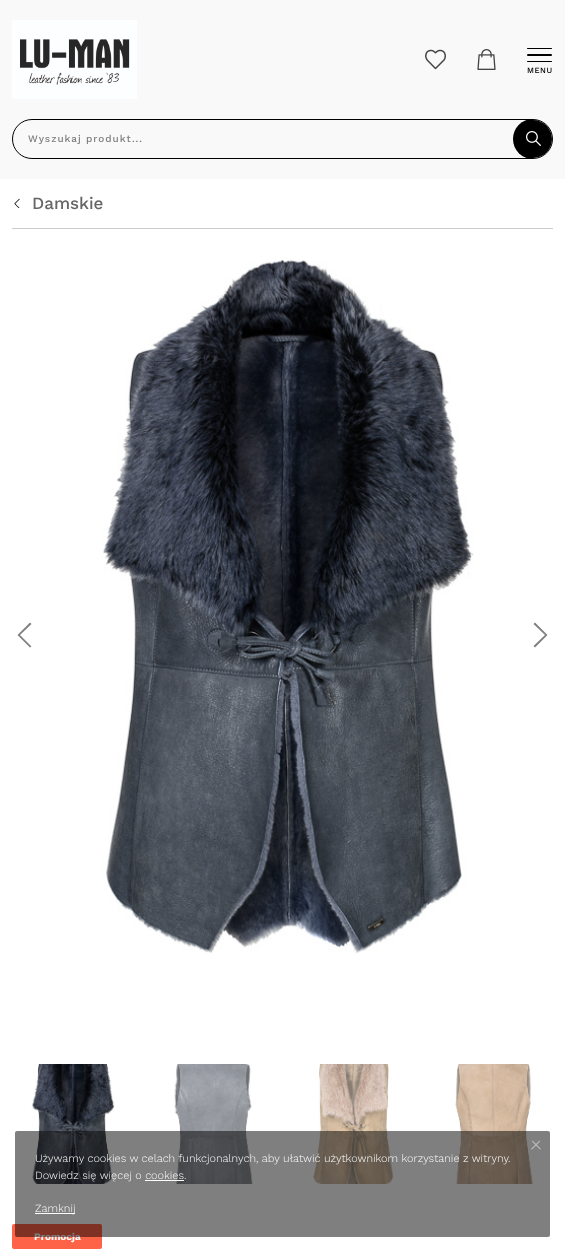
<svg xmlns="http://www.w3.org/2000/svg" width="565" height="1252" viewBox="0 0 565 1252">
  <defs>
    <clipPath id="clip1"><rect x="28" y="133" width="469" height="11"/></clipPath>
    <clipPath id="clip2"><rect x="13" y="120" width="539" height="38" rx="19"/></clipPath>
  </defs>
  <rect width="100%" height="100%" fill="rgb(249,249,249)"/>
  <image x="12" y="20" width="125" height="79" href="pic1.png"/>
  <image x="425" y="49" width="21" height="21" href="pic2.png"/>
  <image x="477" y="49" width="19" height="21" href="pic3.png"/>
  <rect x="527" y="48" width="25" height="1" rx="0.5" fill="rgb(0,0,0)"/>
  <rect x="527" y="54" width="25" height="2" rx="1" fill="rgb(0,0,0)"/>
  <rect x="527" y="61" width="25" height="1" rx="0.5" fill="rgb(0,0,0)"/>
  <text x="527" y="73" font-family="Work Sans" font-size="8" font-weight="500" letter-spacing="0.5" fill="rgb(0,0,0)">MENU</text>
  <rect x="12.5" y="119.5" width="540" height="39" rx="19.5" fill="none" stroke="rgb(0,0,0)"/>
  <g clip-path="url(#clip1)">
    <text x="28" y="142" font-family="Work Sans" font-size="10" font-weight="500" letter-spacing="1" fill="rgb(125,125,125)">Wyszukaj produkt...</text>
  </g>
  <g clip-path="url(#clip2)">
    <circle cx="533" cy="139" r="20" fill="rgb(0,0,0)"/>
  </g>
  <image x="526" y="131" width="15" height="15" href="pic4.png"/>
  <rect x="0" y="179" width="565" height="1073" fill="rgb(255,255,255)"/>
  <rect x="12" y="228" width="541" height="1" fill="rgb(204,204,204)"/>
  <image x="14" y="198" width="6" height="10" href="pic5.png"/>
  <text x="32" y="209" font-family="Work Sans" font-size="17" font-weight="500" fill="rgb(102,102,102)">Damskie</text>
  <image x="102" y="260" width="372" height="694" href="pic6.png"/>
  <path d="M30 647.5L31.5 646.5L20 635L31.5 624L30 622.5L17.5 635Z" fill="rgb(128,128,128)"/>
  <path d="M535 622.5L533.5 624L545 635L533.5 646L535 647.5L547.5 635Z" fill="rgb(128,128,128)"/>
  <image x="31" y="1064" width="84" height="120" href="pic7.png"/>
  <image x="174" y="1064" width="79" height="120" href="pic8.png"/>
  <image x="313" y="1064" width="81" height="120" href="pic9.png"/>
  <image x="455" y="1064" width="78" height="120" href="pic10.png"/>
  <rect x="12" y="1224" width="90" height="25" rx="2" fill="rgb(255,99,71)"/>
  <text x="34" y="1240" font-family="Work Sans" font-size="10" font-weight="bold" fill="rgb(255,255,255)">Promocja</text>
  <rect x="15" y="1131" width="535" height="106" rx="2" fill="rgba(0,0,0,0.5)"/>
  <path d="M532.5 1140.5L541 1149L540 1149.5L532 1141.5Z" fill="rgb(191,191,191)"/>
  <path d="M531 1149L539.5 1140.5L540 1141.5L532 1149.5Z" fill="rgb(191,191,191)"/>
  <g font-family="Work Sans" font-size="11" font-weight="300" fill="rgb(255,255,255)">
    <text>
      <tspan x="35" y="1162">Używamy cookies w celach funkcjonalnych, aby ułatwić użytkownikom korzystanie z witryny.</tspan>
      <tspan x="35" y="1179">Dowiedz się więcej o cookies.</tspan>
    </text>
  </g>
  <rect x="145" y="1180" width="39" height="1" fill="rgb(255,255,255)"/>
  <rect x="35" y="1213" width="40" height="1" fill="rgb(255,255,255)"/>
  <text x="35" y="1212" font-family="Work Sans" font-size="11" font-weight="300" fill="rgb(255,255,255)">Zamknij</text>
</svg>
